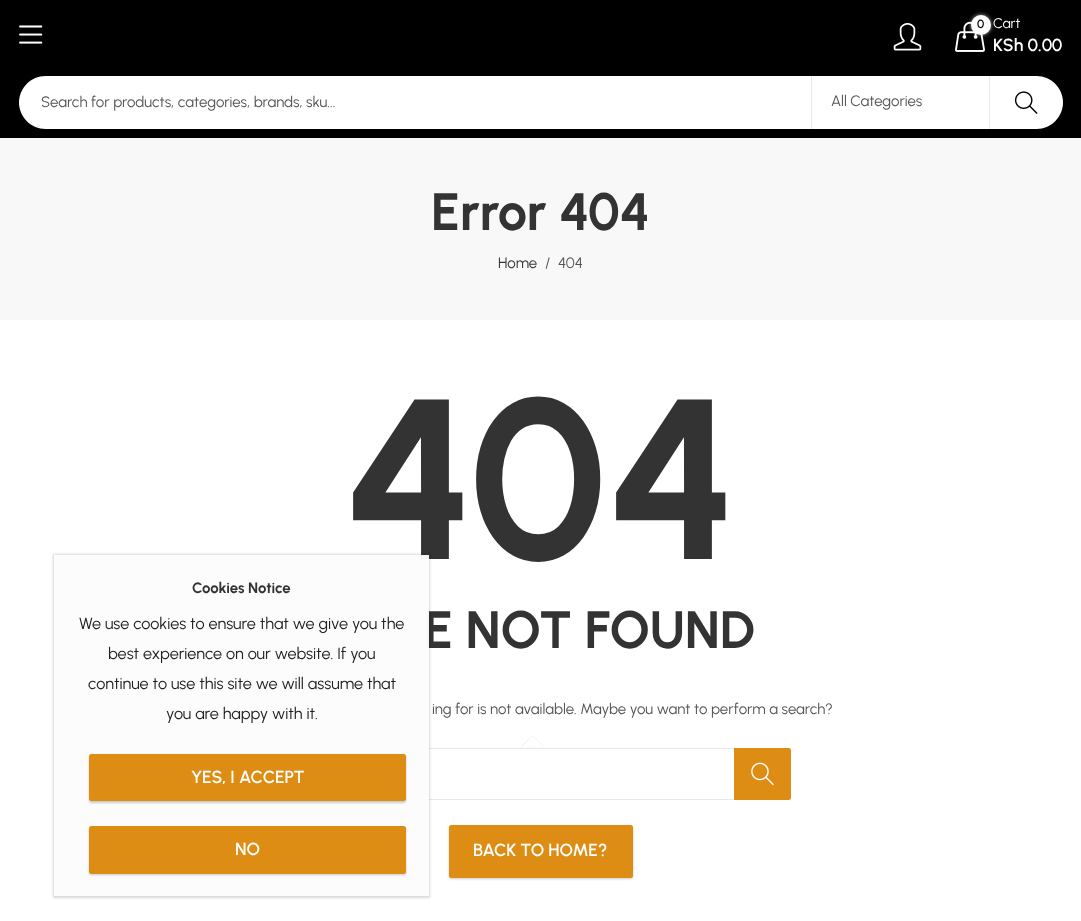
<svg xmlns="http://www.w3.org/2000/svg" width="1081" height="921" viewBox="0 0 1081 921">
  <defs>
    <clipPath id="clip1"><path d="M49 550H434V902H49ZM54 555H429V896H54Z" clip-rule="evenodd"/></clipPath>
  </defs>
  <rect width="100%" height="100%" fill="rgb(255,255,255)"/>
  <rect x="0" y="0" width="1081" height="138" fill="rgb(0,0,0)"/>
  <image x="19" y="25" width="24" height="19" href="pic1.png"/>
  <image x="893" y="23" width="29" height="28" href="pic2.png"/>
  <image x="955" y="21" width="30" height="31" href="pic3.png"/>
  <rect x="971" y="15" width="20" height="20" rx="10" fill="rgba(255,255,255,0.7)" filter="blur(2px)"/>
  <circle cx="981" cy="25" r="10" fill="rgb(255,255,255)"/>
  <text x="977" y="28" font-family="Urbanist" font-size="12" font-weight="600" fill="rgb(0,0,0)">0</text>
  <text x="993" y="28" font-family="Urbanist" font-size="14" fill="rgb(255,255,255)">Cart</text>
  <text x="993" y="51" font-family="Urbanist" font-size="17.5" font-weight="600" fill="rgb(255,255,255)">KSh 0.00</text>
  <path d="M45.5 76H813V129H45.5C31 129 19 117 19 102.5C19 88 31 76 45.5 76Z" fill="rgb(255,255,255)"/>
  <rect x="811" y="76" width="1" height="53" fill="rgb(233,233,233)"/>
  <text x="41" y="107" font-family="Urbanist" font-size="15" fill="rgb(85,85,85)">Search for products, categories, brands, sku...</text>
  <rect x="813" y="76" width="176" height="53" fill="rgb(255,255,255)"/>
  <rect x="989" y="76" width="1" height="53" fill="rgb(233,233,233)"/>
  <text x="831" y="106" font-family="Urbanist" font-size="15" fill="rgb(85,85,85)">All Categories</text>
  <path d="M990 76H1036.5C1051 76 1063 88 1063 102.5C1063 117 1051 129 1036.5 129H990Z" fill="rgb(255,255,255)"/>
  <image x="1014" y="91" width="24" height="23" href="pic4.png"/>
  <rect x="0" y="138" width="1081" height="182" fill="rgb(248,248,248)"/>
  <text x="431" y="230" font-family="Urbanist" font-size="52.5" font-weight="bold" fill="rgb(51,51,51)">Error 404</text>
  <text x="498" y="268" font-family="Urbanist" font-size="15" fill="rgb(51,51,51)">Home</text>
  <g font-family="Urbanist" font-size="15" fill="rgb(85,85,85)">
    <text x="545" y="268">/</text>
    <text x="558" y="268">404</text>
  </g>
  <text x="344" y="559" font-family="Urbanist" font-size="228" font-weight="bold" fill="rgb(51,51,51)">404</text>
  <text x="424" y="648" font-family="Urbanist" font-size="52.5" font-weight="bold" fill="rgb(51,51,51)">E NOT FOUND</text>
  <text x="432" y="714" font-family="Urbanist" font-size="15" fill="rgb(85,85,85)">ing for is not available. Maybe you want to perform a search?</text>
  <path d="M545 747.5H520L532.5 735Z" fill="rgb(240,240,240)"/>
  <path d="M544 747.5H521L532.5 736Z" fill="rgb(255,255,255)"/>
  <rect x="291.5" y="748.5" width="499" height="51" fill="none" stroke="rgb(233,233,233)"/>
  <path d="M734 748H788.5C790 748 791 749 791 750.5V797.5C791 799 790 800 788.5 800H734Z" fill="rgb(221,141,19)"/>
  <image x="751" y="762" width="23" height="24" href="pic5.png"/>
  <rect x="449" y="826" width="184" height="53" rx="2.5" fill="rgba(0,0,0,0.2)" filter="blur(1px)"/>
  <rect x="449" y="825" width="184" height="53" rx="2.5" fill="rgb(221,141,19)"/>
  <text x="473" y="856" font-family="Urbanist" font-size="17.5" font-weight="600" fill="rgb(255,255,255)">BACK TO HOME?</text>
  <g clip-path="url(#clip1)">
    <rect x="53" y="554" width="377" height="344" fill="rgba(0,0,0,0.15)" filter="blur(1px)"/>
  </g>
  <rect x="54" y="555" width="375" height="341" fill="rgba(252,252,252,0.96)"/>
  <text x="192" y="593" font-family="Urbanist" font-size="15" font-weight="bold" fill="rgb(51,51,51)">Cookies Notice</text>
  <g font-family="Urbanist" font-size="16.25" fill="rgb(33,33,33)">
    <text x="79" y="629">We use cookies to ensure that we give you the</text>
    <text x="108" y="659">best experience on our website. If you</text>
    <text x="88" y="689">continue to use this site we will assume that</text>
    <text x="166" y="719">you are happy with it.</text>
  </g>
  <rect x="89" y="755" width="317" height="48" rx="2.5" fill="rgba(0,0,0,0.2)" filter="blur(1px)"/>
  <rect x="89" y="754" width="317" height="47" rx="2.5" fill="rgb(221,141,19)"/>
  <text x="191" y="783" font-family="Urbanist" font-size="17.5" font-weight="600" fill="rgb(255,255,255)">YES, I ACCEPT</text>
  <rect x="89" y="828" width="317" height="47" rx="2.5" fill="rgba(0,0,0,0.2)" filter="blur(1px)"/>
  <rect x="89" y="826" width="317" height="48" rx="2.5" fill="rgb(221,141,19)"/>
  <text x="235" y="855" font-family="Urbanist" font-size="17.5" font-weight="600" fill="rgb(255,255,255)">NO</text>
</svg>
